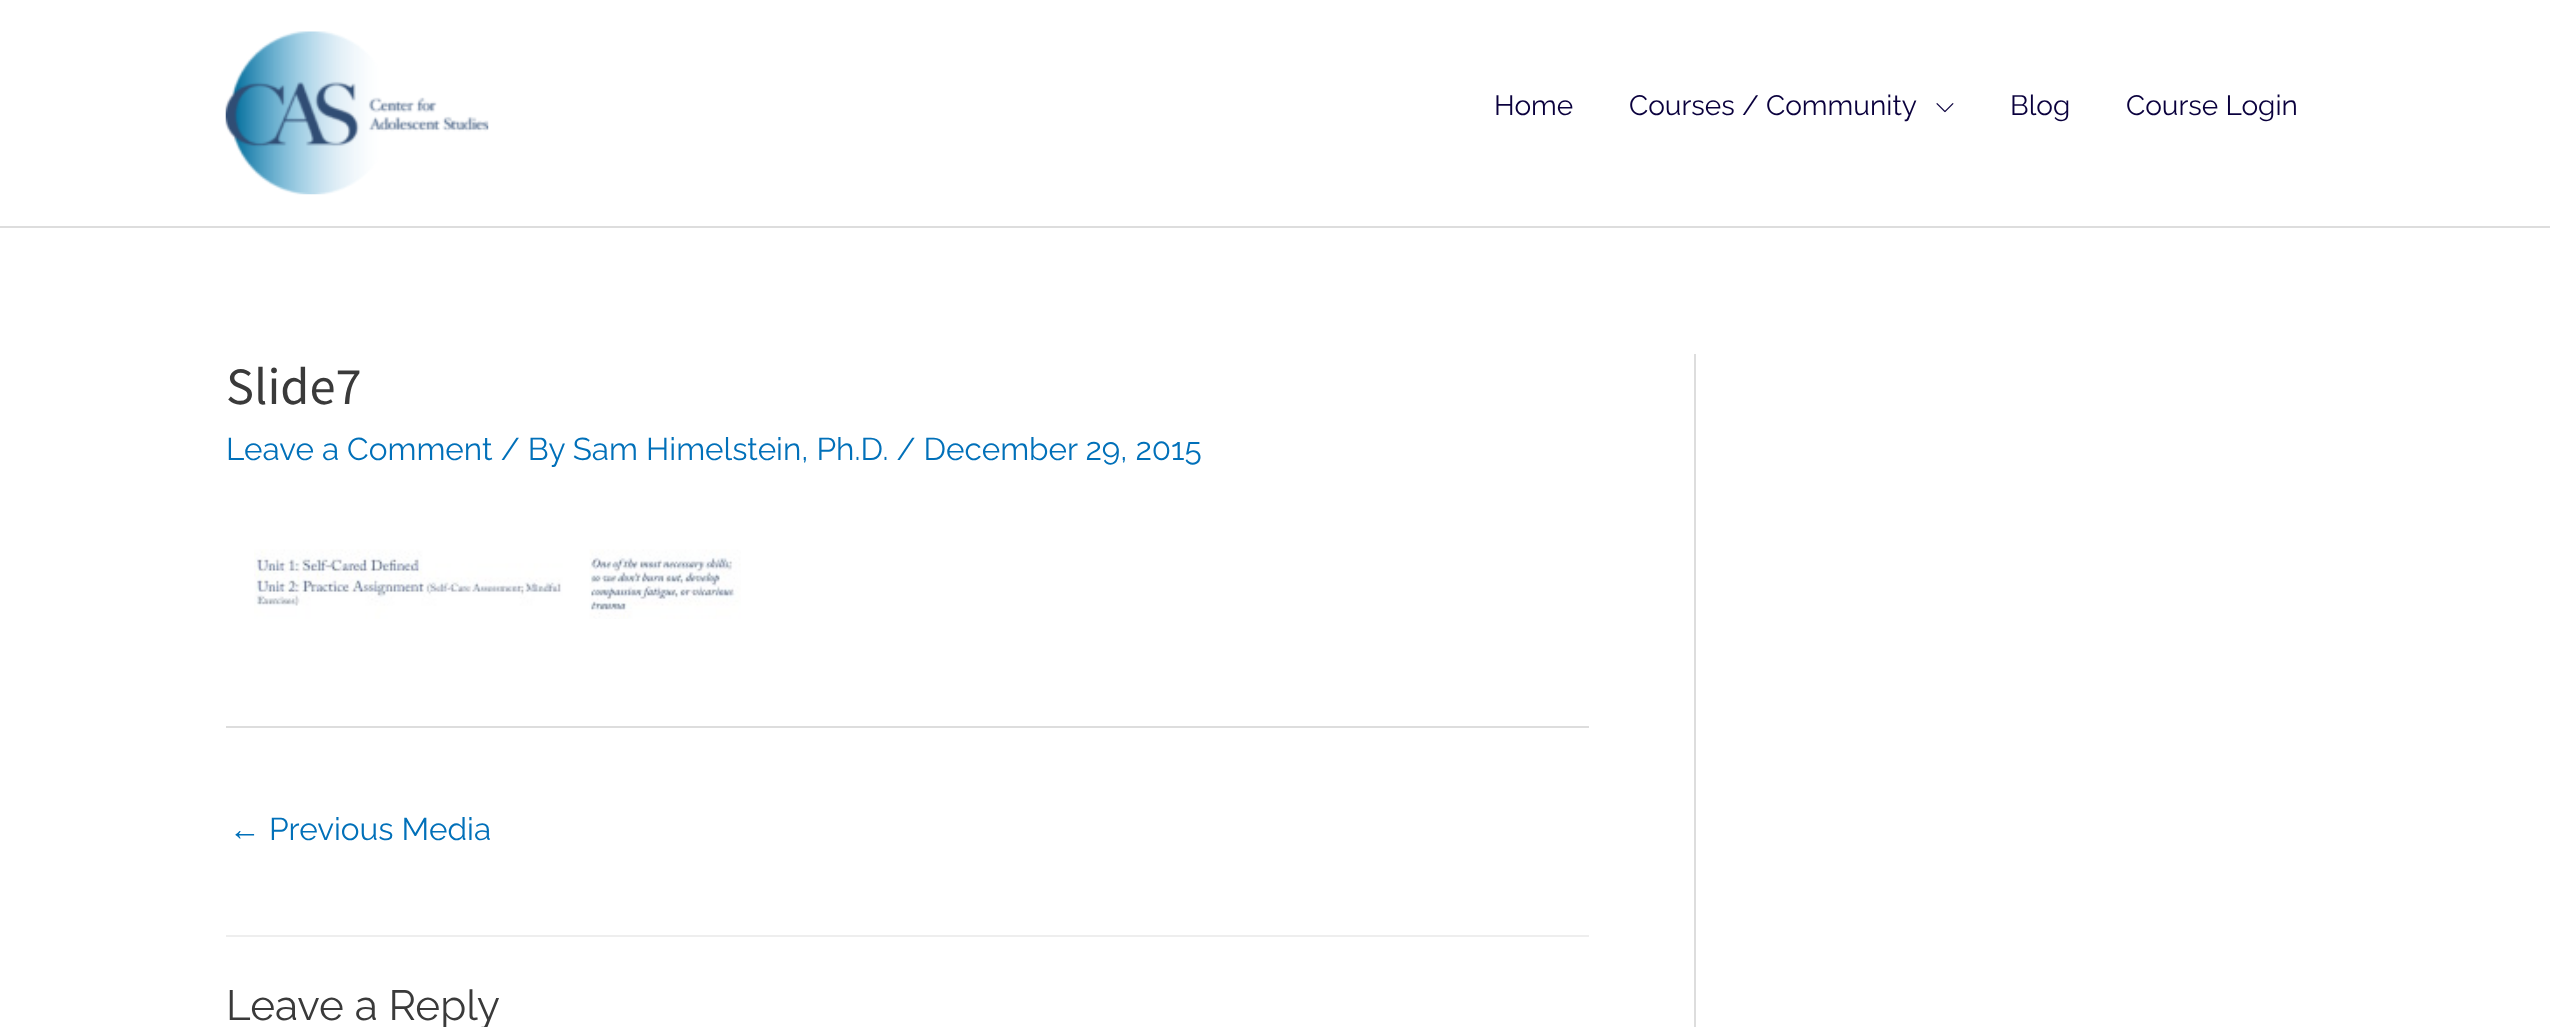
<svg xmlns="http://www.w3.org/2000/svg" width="2550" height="1027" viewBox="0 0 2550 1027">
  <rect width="100%" height="100%" fill="rgb(255,255,255)"/>
  <rect x="0" y="226" width="2550" height="2" fill="rgb(221,221,221)"/>
  <image x="225" y="31" width="264" height="164" href="pic1.png"/>
  <g font-family="Raleway" font-size="28" font-weight="100" fill="rgb(10,0,61)">
    <text x="1494" y="115">Home</text>
    <text x="1629" y="115">Courses / Community</text>
  </g>
  <image x="1936" y="103" width="18" height="10" href="pic2.png"/>
  <g font-family="Raleway" font-size="28" font-weight="100" fill="rgb(10,0,61)">
    <text x="2010" y="115">Blog</text>
    <text x="2126" y="115">Course Login</text>
  </g>
  <rect x="1694" y="354" width="2" height="673" fill="rgb(221,221,221)"/>
  <text x="226" y="404" font-family="Source Sans Pro" font-size="52.5" fill="rgb(58,58,58)">Slide7</text>
  <text x="226" y="460" font-family="Raleway" font-size="31.5" font-weight="100" fill="rgb(1,112,185)">Leave a Comment / By Sam Himelstein, Ph.D. / December 29, 2015</text>
  <image x="254" y="549" width="487" height="70" href="pic3.png"/>
  <rect x="226" y="726" width="1363" height="2" fill="rgb(221,221,221)"/>
  <text x="229" y="840" font-family="Liberation Sans" font-size="31.5" fill="rgb(1,112,185)">←</text>
  <text x="269" y="840" font-family="Raleway" font-size="31.5" font-weight="100" fill="rgb(1,112,185)">Previous Media</text>
  <rect x="226" y="935" width="1363" height="2" fill="rgb(238,238,238)"/>
  <text x="226" y="1020" font-family="Raleway" font-size="42.25" font-weight="100" fill="rgb(58,58,58)">Leave a Reply</text>
</svg>
